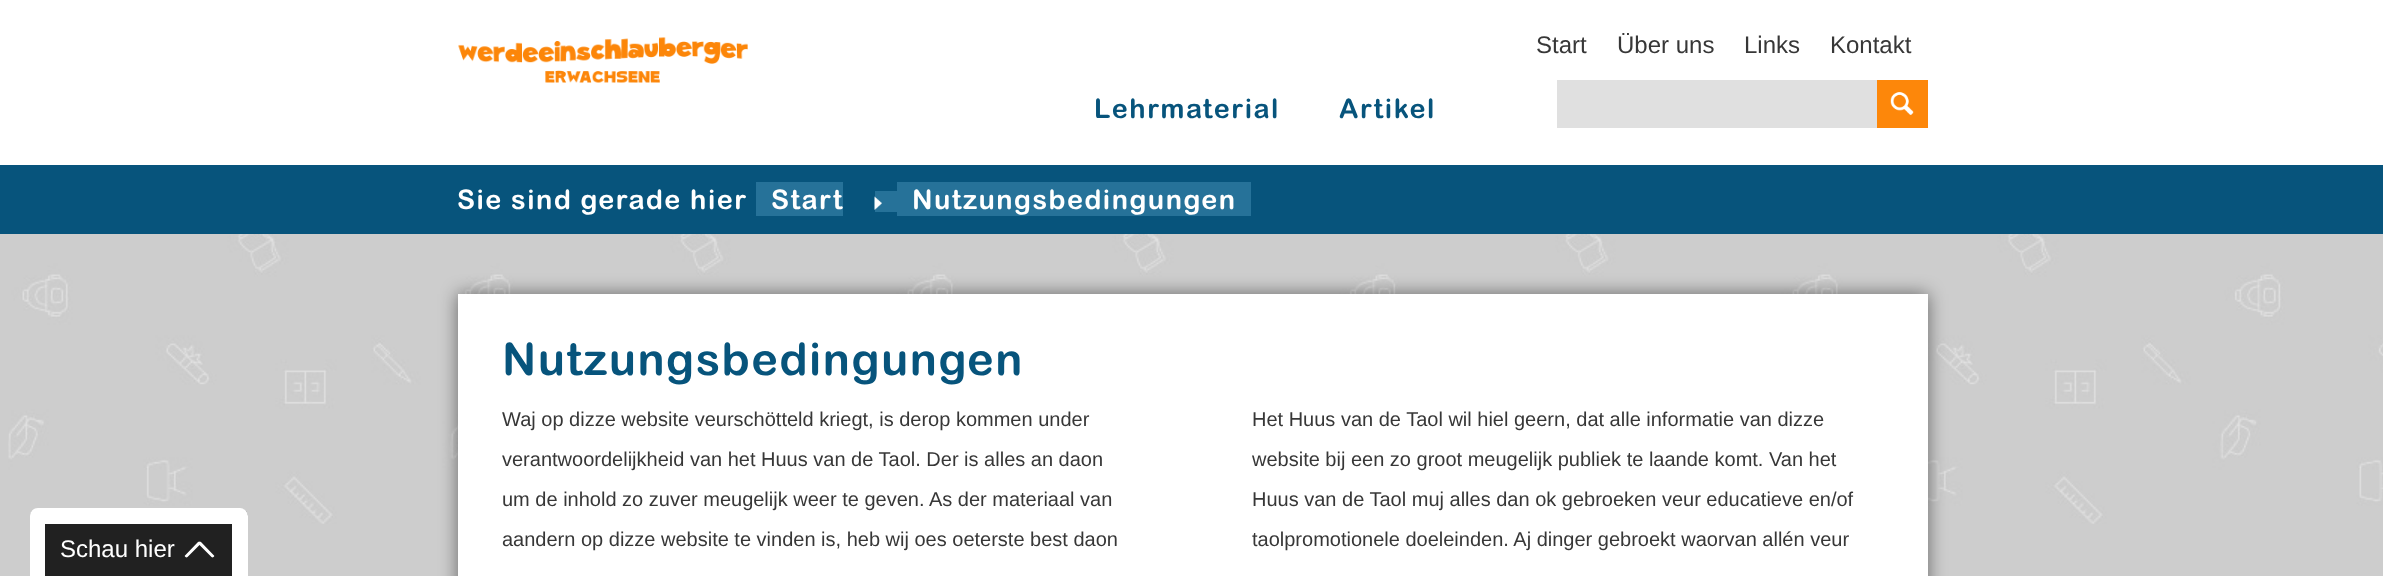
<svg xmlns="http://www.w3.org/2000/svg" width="2383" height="576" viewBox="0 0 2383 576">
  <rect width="100%" height="100%" fill="rgb(205,205,205)"/>
  <image x="8" y="234" width="2375" height="290" href="pic1.png"/>
  <rect x="0" y="0" width="2383" height="165" fill="rgb(255,255,255)"/>
  <image x="458" y="37" width="290" height="46" href="pic2.png"/>
  <g font-family="Liberation Sans" font-size="24" fill="rgb(55,55,55)">
    <text x="1536" y="53">Start</text>
    <text x="1617" y="53">Über uns</text>
    <text x="1744" y="53">Links</text>
    <text x="1830" y="53">Kontakt</text>
  </g>
  <g font-family="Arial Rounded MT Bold" font-size="27" font-weight="bold" letter-spacing="1.5" fill="rgb(7,84,124)">
    <text x="1094" y="118">Lehrmaterial</text>
    <text x="1339" y="118">Artikel</text>
  </g>
  <rect x="1557" y="80" width="320" height="48" fill="rgb(224,224,224)"/>
  <rect x="1877" y="80" width="51" height="48" fill="rgb(253,135,10)"/>
  <image x="1890" y="92" width="24" height="23" href="pic3.png"/>
  <rect x="0" y="165" width="2383" height="69" fill="rgb(7,84,124)"/>
  <text x="457" y="209" font-family="Arial Rounded MT Bold" font-size="27" font-weight="bold" letter-spacing="1.5" fill="rgb(255,255,255)">Sie sind gerade hier</text>
  <rect x="756" y="182" width="87" height="34" fill="rgb(38,114,153)"/>
  <rect x="875" y="191" width="22" height="21" fill="rgb(38,114,153)"/>
  <text x="771" y="209" font-family="Arial Rounded MT Bold" font-size="27" font-weight="bold" letter-spacing="1.5" fill="rgb(255,255,255)">Start</text>
  <image x="874" y="196" width="8" height="14" href="pic4.png"/>
  <rect x="897" y="182" width="354" height="34" fill="rgb(38,114,153)"/>
  <text x="912" y="209" font-family="Arial Rounded MT Bold" font-size="27" font-weight="bold" letter-spacing="1.5" fill="rgb(255,255,255)">Nutzungsbedingungen</text>
  <rect x="30" y="509" width="218" height="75" rx="8" fill="rgb(33,33,33)"/>
  <path d="M38 508H240C244 508 248 512 248 516V576C248 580 244 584 240 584H38C33 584 30 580 30 576V516C30 512 33 508 38 508ZM45 524H232V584H45V576Z" fill="rgb(255,255,255)" fill-rule="evenodd"/>
  <text x="60" y="557" font-family="Liberation Sans" font-size="24" fill="rgb(255,255,255)">Schau hier</text>
  <path d="M185.5 555L198 542C198.5 541.5 199.5 541.5 200 542C201 543 201 543.5 200 544.5L187.5 557C187 557.5 186 557.5 185.5 557C184.5 556.5 184.5 555.5 185.5 555Z" fill="rgb(255,255,255)"/>
  <path d="M201 542L213.5 555C214.5 555.5 214.5 556.5 213.5 557C213 557.5 212 557.5 211.5 557L199 544.5C198 543.5 198 543 199 542C199.5 541.5 200.5 541.5 201 542Z" fill="rgb(255,255,255)"/>
  <rect x="458" y="294" width="1470" height="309" fill="rgba(0,0,0,0.5)" filter="blur(9px)"/>
  <rect x="458" y="294" width="1470" height="282" fill="rgb(255,255,255)"/>
  <text x="502" y="375" font-family="Arial Rounded MT Bold" font-size="45" font-weight="bold" letter-spacing="1.5" fill="rgb(7,84,124)">Nutzungsbedingungen</text>
  <g font-family="Liberation Sans" font-size="20" fill="rgb(55,55,55)">
    <text x="502" y="426">Waj op dizze website veurschötteld kriegt, is derop kommen under</text>
    <text x="502" y="466">verantwoordelijkheid van het Huus van de Taol. Der is alles an daon</text>
    <text x="502" y="506">um de inhold zo zuver meugelijk weer te geven. As der materiaal van</text>
    <text x="502" y="546">aandern op dizze website te vinden is, heb wij oes oeterste best daon</text>
    <text x="1252" y="426">Het Huus van de Taol wil hiel geern, dat alle informatie van dizze</text>
    <text x="1252" y="466">website bij een zo groot meugelijk publiek te laande komt. Van het</text>
    <text x="1252" y="506">Huus van de Taol muj alles dan ok gebroeken veur educatieve en/of</text>
    <text x="1252" y="546">taolpromotionele doeleinden. Aj dinger gebroekt waorvan allén veur</text>
  </g>
</svg>
